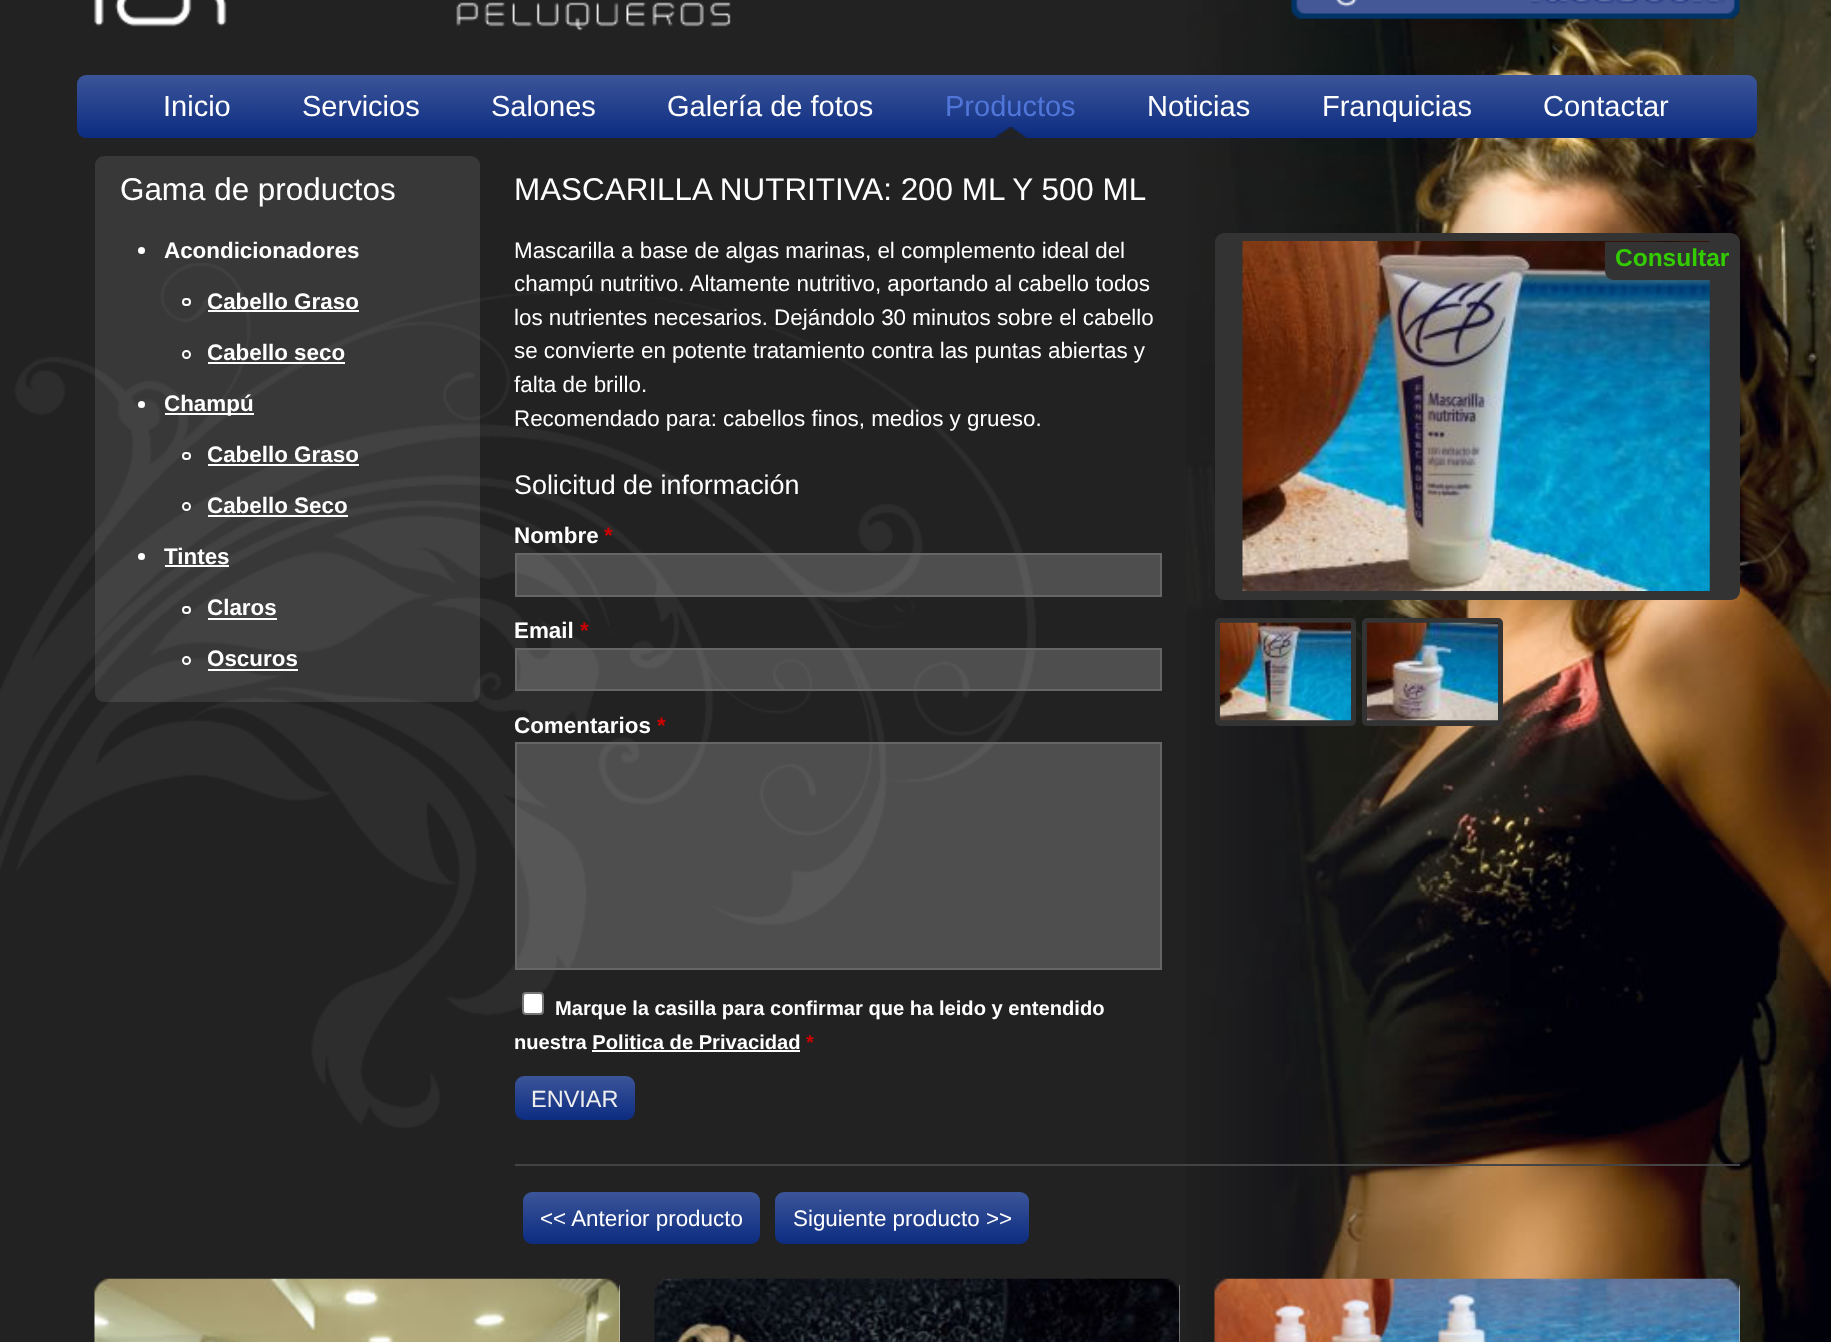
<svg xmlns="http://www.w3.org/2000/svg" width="1831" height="1342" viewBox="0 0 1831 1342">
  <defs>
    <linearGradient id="g1" gradientUnits="userSpaceOnUse" x1="77" y1="75" x2="77" y2="138"><stop offset="0" stop-color="rgb(60,85,153)"/><stop offset="1" stop-color="rgb(12,44,129)"/></linearGradient>
    <linearGradient id="g2" gradientUnits="userSpaceOnUse" x1="515" y1="1076" x2="515" y2="1120"><stop offset="0" stop-color="rgb(60,85,153)"/><stop offset="1" stop-color="rgb(12,44,129)"/></linearGradient>
    <linearGradient id="g3" gradientUnits="userSpaceOnUse" x1="523" y1="1192" x2="523" y2="1244"><stop offset="0" stop-color="rgb(60,85,153)"/><stop offset="1" stop-color="rgb(12,44,129)"/></linearGradient>
    <linearGradient id="g4" gradientUnits="userSpaceOnUse" x1="775" y1="1192" x2="775" y2="1244"><stop offset="0" stop-color="rgb(60,85,153)"/><stop offset="1" stop-color="rgb(12,44,129)"/></linearGradient>
    <linearGradient id="g5" gradientUnits="userSpaceOnUse" x1="95" y1="1279" x2="95" y2="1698"><stop offset="0" stop-color="rgb(238,238,238)"/><stop offset="1" stop-color="rgb(51,51,51)"/></linearGradient>
    <linearGradient id="g6" gradientUnits="userSpaceOnUse" x1="655" y1="1279" x2="655" y2="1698"><stop offset="0" stop-color="rgb(238,238,238)"/><stop offset="1" stop-color="rgb(51,51,51)"/></linearGradient>
    <linearGradient id="g7" gradientUnits="userSpaceOnUse" x1="1215" y1="1279" x2="1215" y2="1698"><stop offset="0" stop-color="rgb(238,238,238)"/><stop offset="1" stop-color="rgb(51,51,51)"/></linearGradient>
  </defs>
  <rect width="100%" height="100%" fill="rgb(34,34,34)"/>
  <image x="1186" y="0" width="645" height="1342" href="pic1.png"/>
  <image x="0" y="263" width="1036" height="865" href="pic2.png"/>
  <image x="94" y="0" width="637" height="31" href="pic3.png"/>
  <image x="1291" y="0" width="449" height="19" href="pic4.png"/>
  <rect x="77" y="75" width="1680" height="63" rx="9" fill="url(#g1)"/>
  <g font-family="Liberation Sans" font-size="29" fill="rgb(255,255,255)">
    <text x="163" y="116">Inicio</text>
    <text x="302" y="116">Servicios</text>
    <text x="491" y="116">Salones</text>
    <text x="667" y="116">Galería de fotos</text>
  </g>
  <image x="994" y="127" width="34" height="11" href="pic5.png"/>
  <text x="945" y="116" font-family="Liberation Sans" font-size="29" fill="rgb(81,118,217)">Productos</text>
  <g font-family="Liberation Sans" font-size="29" fill="rgb(255,255,255)">
    <text x="1147" y="116">Noticias</text>
    <text x="1322" y="116">Franquicias</text>
    <text x="1543" y="116">Contactar</text>
  </g>
  <rect x="95" y="156" width="385" height="546" rx="9" fill="rgba(255,255,255,0.1)"/>
  <text x="120" y="200" font-family="Liberation Sans" font-size="31.4" fill="rgb(255,255,255)">Gama de productos</text>
  <circle cx="141.5" cy="250.5" r="3.5" fill="rgb(255,255,255)"/>
  <text x="164" y="258" font-family="Liberation Sans" font-size="22.4" font-weight="bold" fill="rgb(255,255,255)">Acondicionadores</text>
  <rect x="183" y="299" width="7" height="6" rx="3" fill="none" stroke="rgb(255,255,255)" stroke-width="2"/>
  <text x="207" y="309" font-family="Liberation Sans" font-size="22.4" font-weight="bold" fill="rgb(255,255,255)">Cabello Graso</text>
  <rect x="208" y="310" width="151" height="2" fill="rgb(255,255,255)"/>
  <circle cx="186.5" cy="354.5" r="3.5" fill="none" stroke="rgb(255,255,255)" stroke-width="2"/>
  <text x="207" y="360" font-family="Liberation Sans" font-size="22.4" font-weight="bold" fill="rgb(255,255,255)">Cabello seco</text>
  <rect x="208" y="362" width="137" height="2" fill="rgb(255,255,255)"/>
  <circle cx="141.5" cy="404.5" r="3.5" fill="rgb(255,255,255)"/>
  <rect x="165" y="413" width="89" height="2" fill="rgb(255,255,255)"/>
  <text x="164" y="411" font-family="Liberation Sans" font-size="22.4" font-weight="bold" fill="rgb(255,255,255)">Champú</text>
  <rect x="183" y="453" width="7" height="6" rx="3" fill="none" stroke="rgb(255,255,255)" stroke-width="2"/>
  <text x="207" y="462" font-family="Liberation Sans" font-size="22.4" font-weight="bold" fill="rgb(255,255,255)">Cabello Graso</text>
  <rect x="208" y="464" width="151" height="2" fill="rgb(255,255,255)"/>
  <circle cx="186.5" cy="506.5" r="3.5" fill="none" stroke="rgb(255,255,255)" stroke-width="2"/>
  <text x="207" y="513" font-family="Liberation Sans" font-size="22.4" font-weight="bold" fill="rgb(255,255,255)">Cabello Seco</text>
  <rect x="208" y="515" width="140" height="2" fill="rgb(255,255,255)"/>
  <circle cx="141.5" cy="556.5" r="3.5" fill="rgb(255,255,255)"/>
  <text x="164" y="564" font-family="Liberation Sans" font-size="22.4" font-weight="bold" fill="rgb(255,255,255)">Tintes</text>
  <rect x="165" y="565" width="64" height="2" fill="rgb(255,255,255)"/>
  <rect x="183" y="607" width="7" height="6" rx="3" fill="none" stroke="rgb(255,255,255)" stroke-width="2"/>
  <text x="207" y="615" font-family="Liberation Sans" font-size="22.4" font-weight="bold" fill="rgb(255,255,255)">Claros</text>
  <rect x="208" y="618" width="69" height="2" fill="rgb(255,255,255)"/>
  <circle cx="186.5" cy="660.5" r="3.5" fill="none" stroke="rgb(255,255,255)" stroke-width="2"/>
  <text x="207" y="666" font-family="Liberation Sans" font-size="22.4" font-weight="bold" fill="rgb(255,255,255)">Oscuros</text>
  <rect x="208" y="669" width="90" height="2" fill="rgb(255,255,255)"/>
  <text x="514" y="200" font-family="Liberation Sans" font-size="31.4" fill="rgb(255,255,255)">MASCARILLA NUTRITIVA: 200 ML Y 500 ML</text>
  <g font-family="Liberation Sans" font-size="22.4" fill="rgb(255,255,255)">
    <text>
      <tspan x="514" y="258">Mascarilla a base de algas marinas, el complemento ideal del</tspan>
      <tspan x="514" y="291">champú nutritivo. Altamente nutritivo, aportando al cabello todos</tspan>
      <tspan x="514" y="325">los nutrientes necesarios. Dejándolo 30 minutos sobre el cabello</tspan>
      <tspan x="514" y="358">se convierte en potente tratamiento contra las puntas abiertas y</tspan>
      <tspan x="514" y="392">falta de brillo.</tspan>
      <tspan x="514" y="426">Recomendado para: cabellos finos, medios y grueso.</tspan>
    </text>
  </g>
  <text x="514" y="494" font-family="Liberation Sans" font-size="26.9" fill="rgb(255,255,255)">Solicitud de información</text>
  <text x="514" y="543" font-family="Liberation Sans" font-size="22.4" font-weight="bold" fill="rgb(255,255,255)">Nombre</text>
  <text x="604" y="543" font-family="Liberation Sans" font-size="22.4" font-weight="bold" fill="rgb(204,0,0)">*</text>
  <rect x="516" y="554" width="645" height="42" fill="rgba(255,255,255,0.2)" stroke="rgb(102,102,102)" stroke-width="2"/>
  <text x="514" y="638" font-family="Liberation Sans" font-size="22.4" font-weight="bold" fill="rgb(255,255,255)">Email</text>
  <text x="580" y="638" font-family="Liberation Sans" font-size="22.4" font-weight="bold" fill="rgb(204,0,0)">*</text>
  <rect x="516" y="649" width="645" height="41" fill="rgba(255,255,255,0.2)" stroke="rgb(102,102,102)" stroke-width="2"/>
  <text x="514" y="733" font-family="Liberation Sans" font-size="22.4" font-weight="bold" fill="rgb(255,255,255)">Comentarios</text>
  <text x="657" y="733" font-family="Liberation Sans" font-size="22.4" font-weight="bold" fill="rgb(204,0,0)">*</text>
  <rect x="516" y="743" width="645" height="226" fill="rgba(255,255,255,0.2)" stroke="rgb(102,102,102)" stroke-width="2"/>
  <rect x="523" y="993" width="20" height="21" rx="3" fill="rgb(255,255,255)" stroke="rgb(118,118,118)" stroke-width="2"/>
  <g font-family="Liberation Sans" font-size="20.15" font-weight="bold" fill="rgb(255,255,255)">
    <text x="555" y="1015">Marque la casilla para confirmar que ha leido y entendido</text>
    <text x="514" y="1049">nuestra Politica de Privacidad</text>
  </g>
  <rect x="592" y="1050" width="208" height="2" fill="rgb(255,255,255)"/>
  <text x="806" y="1049" font-family="Liberation Sans" font-size="20.15" font-weight="bold" fill="rgb(204,0,0)">*</text>
  <rect x="515" y="1076" width="120" height="44" rx="9" fill="url(#g2)"/>
  <text x="531" y="1107" font-family="Liberation Sans" font-size="23.5" fill="rgb(238,238,238)">ENVIAR</text>
  <rect x="1215" y="233" width="525" height="367" rx="9" fill="rgb(51,51,51)"/>
  <image x="1242" y="241" width="468" height="350" href="pic6.png"/>
  <path d="M1605 242H1731V280H1614C1609 280 1605 276 1605 271Z" fill="rgb(51,51,51)"/>
  <text x="1615" y="266" font-family="Liberation Sans" font-size="24.5" font-weight="bold" fill="rgb(51,204,0)">Consultar</text>
  <rect x="1215" y="618" width="141" height="108" rx="5" fill="rgb(51,51,51)"/>
  <rect x="1362" y="618" width="141" height="108" rx="5" fill="rgb(51,51,51)"/>
  <image x="1219" y="622" width="132" height="99" href="pic7.png"/>
  <image x="1366" y="622" width="132" height="99" href="pic8.png"/>
  <rect x="515" y="1164" width="1225" height="2" fill="rgb(68,68,68)"/>
  <rect x="523" y="1192" width="237" height="52" rx="9" fill="url(#g3)"/>
  <text x="540" y="1226" font-family="Liberation Sans" font-size="22.4" fill="rgb(255,255,255)">&lt;&lt; Anterior producto</text>
  <rect x="775" y="1192" width="254" height="52" rx="9" fill="url(#g4)"/>
  <text x="793" y="1226" font-family="Liberation Sans" font-size="22.4" fill="rgb(255,255,255)">Siguiente producto &gt;&gt;</text>
  <rect x="95" y="1279" width="525" height="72" rx="9" fill="url(#g5)"/>
  <image x="94" y="1278" width="526" height="64" href="pic9.png"/>
  <rect x="655" y="1279" width="525" height="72" rx="9" fill="url(#g6)"/>
  <image x="654" y="1278" width="526" height="64" href="pic10.png"/>
  <rect x="1215" y="1279" width="525" height="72" rx="9" fill="url(#g7)"/>
  <image x="1214" y="1278" width="526" height="64" href="pic11.png"/>
</svg>
